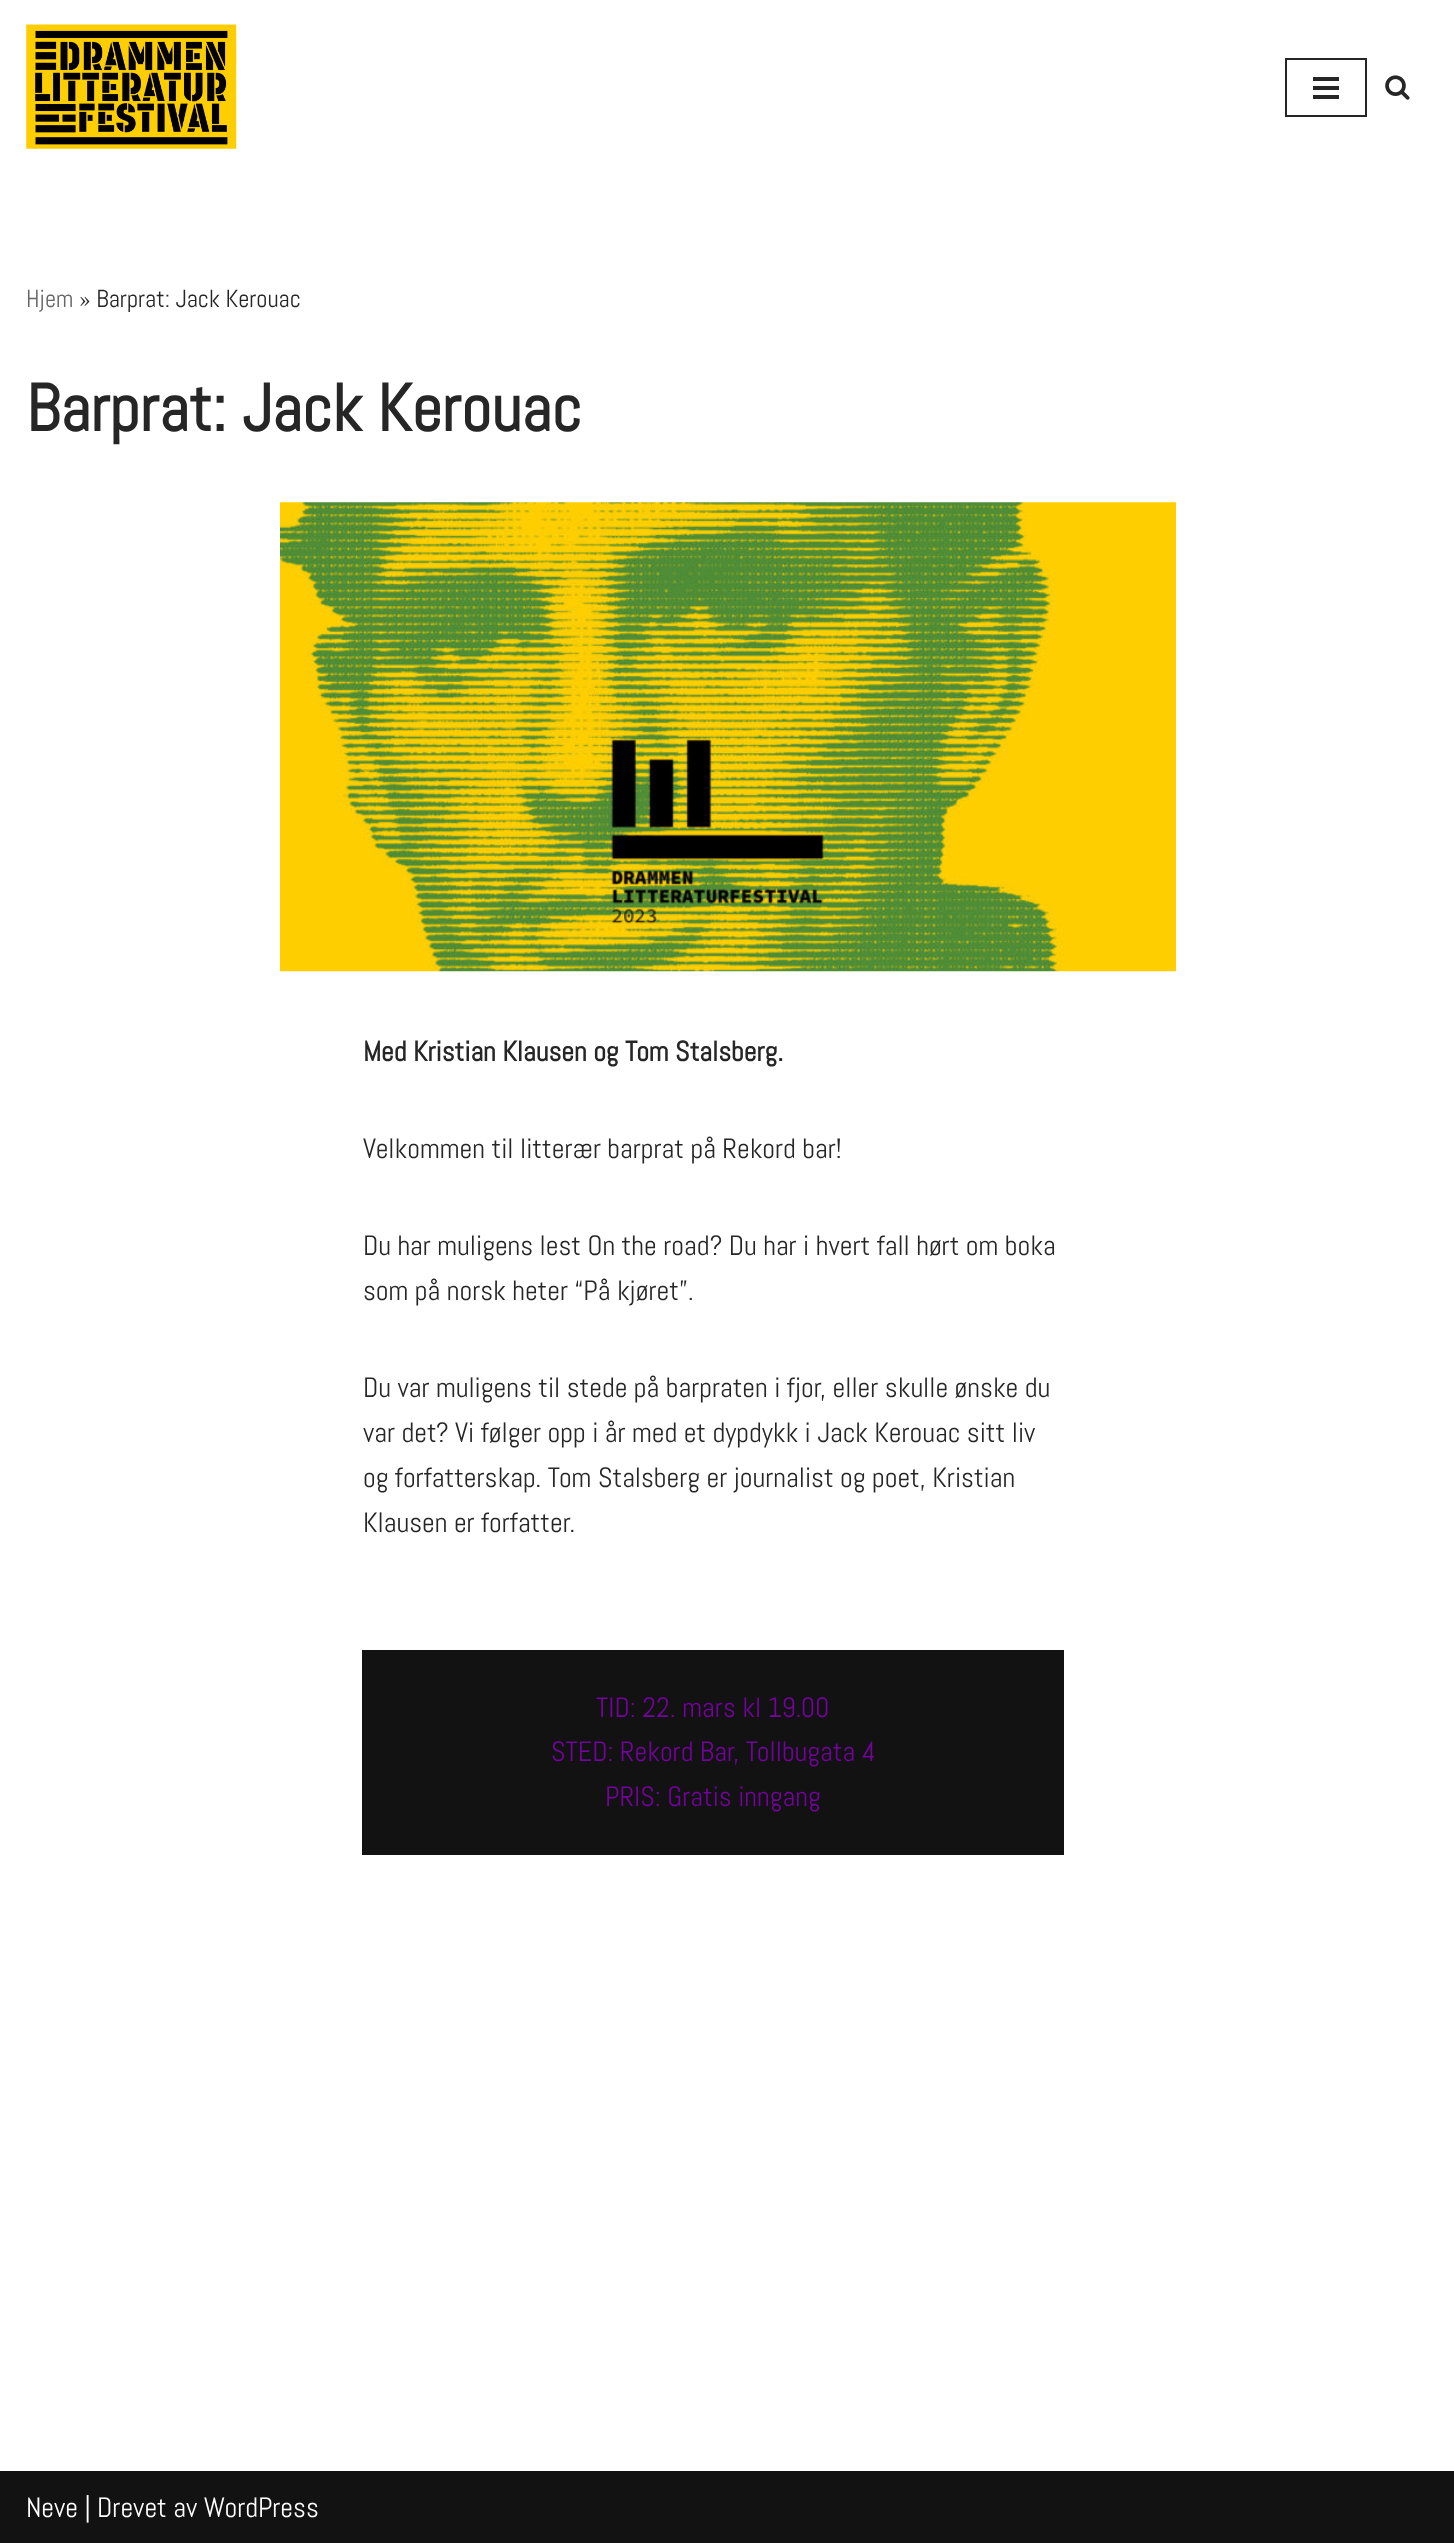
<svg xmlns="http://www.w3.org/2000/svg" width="1454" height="2543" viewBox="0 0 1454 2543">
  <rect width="100%" height="100%" fill="rgb(255,255,255)"/>
  <image x="26" y="24" width="211" height="125" href="pic1.png"/>
  <rect x="1286" y="59" width="80" height="57" fill="none" stroke="rgb(39,38,38)" stroke-width="2"/>
  <rect x="1313" y="77" width="26" height="4" fill="rgb(39,38,38)"/>
  <rect x="1313" y="86" width="26" height="4" fill="rgb(39,38,38)"/>
  <rect x="1313" y="95" width="26" height="4" fill="rgb(39,38,38)"/>
  <image x="1385" y="75" width="25" height="25" href="pic2.png"/>
  <text x="26" y="307" font-family="Abel" font-size="24.5" fill="rgb(103,103,103)">Hjem</text>
  <text x="79" y="307" font-family="Abel" font-size="24.5" fill="rgb(39,38,38)">» Barprat: Jack Kerouac</text>
  <text x="26" y="431" font-family="Abel" font-size="66.5" font-weight="bold" fill="rgb(39,38,38)">Barprat: Jack Kerouac</text>
  <image x="280" y="502" width="896" height="470" href="pic3.png"/>
  <text x="363" y="1061" font-family="Abel" font-size="28" font-weight="bold" fill="rgb(39,38,38)">Med Kristian Klausen og Tom Stalsberg.</text>
  <g font-family="Abel" font-size="28" fill="rgb(39,38,38)">
    <text x="363" y="1158">Velkommen til litterær barprat på Rekord bar!</text>
    <text>
      <tspan x="363" y="1255">Du har muligens lest On the road? Du har i hvert fall hørt om boka</tspan>
      <tspan x="363" y="1300">som på norsk heter “På kjøret”.</tspan>
    </text>
    <text>
      <tspan x="363" y="1397">Du var muligens til stede på barpraten i fjor, eller skulle ønske du</tspan>
      <tspan x="363" y="1442">var det? Vi følger opp i år med et dypdykk i Jack Kerouac sitt liv</tspan>
      <tspan x="363" y="1487">og forfatterskap. Tom Stalsberg er journalist og poet, Kristian</tspan>
      <tspan x="363" y="1532">Klausen er forfatter.</tspan>
    </text>
  </g>
  <rect x="362" y="1650" width="702" height="205" fill="rgb(18,18,18)"/>
  <g font-family="Abel" font-size="28" fill="rgb(116,2,157)">
    <text x="596" y="1717">TID: 22. mars kl 19.00</text>
    <text x="551" y="1761">STED: Rekord Bar, Tollbugata 4</text>
    <text x="605" y="1806">PRIS: Gratis inngang</text>
  </g>
  <rect x="0" y="2471" width="1454" height="72" fill="rgb(18,18,18)"/>
  <text x="26" y="2517" font-family="Abel" font-size="28" fill="rgb(255,255,255)">Neve | Drevet av WordPress</text>
</svg>
